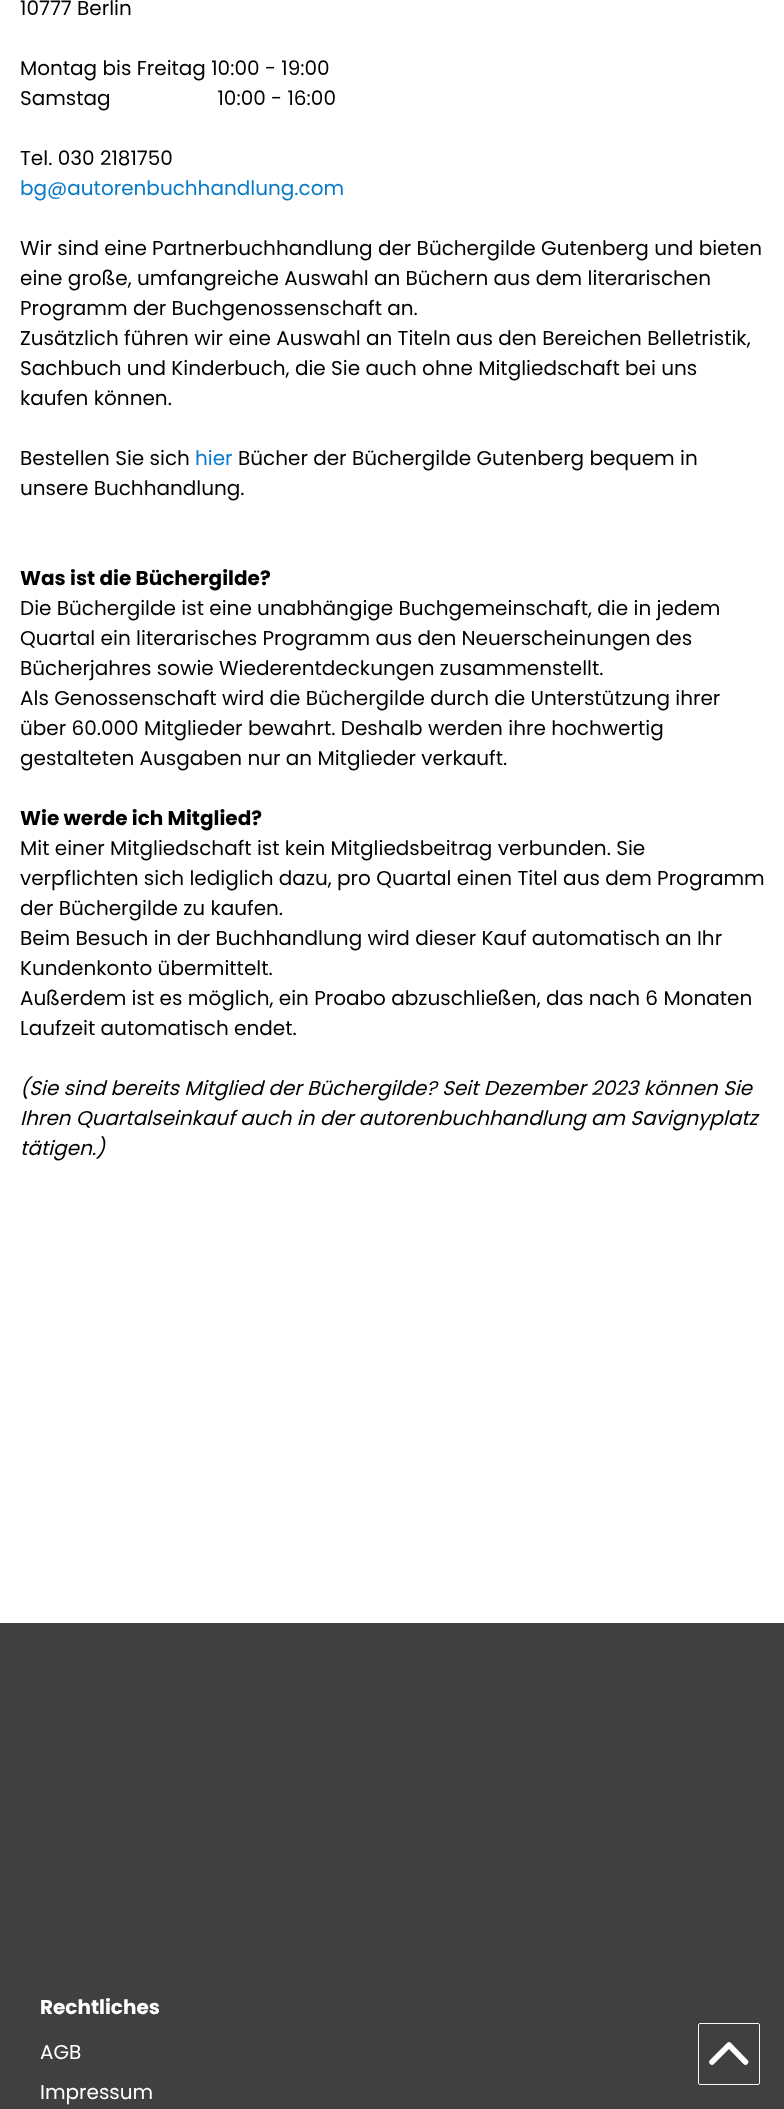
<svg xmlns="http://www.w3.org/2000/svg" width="784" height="2109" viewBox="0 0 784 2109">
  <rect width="100%" height="100%" fill="rgb(255,255,255)"/>
  <g font-family="Poppins" font-size="20" fill="rgb(0,0,0)">
    <text x="20" y="15">10777 Berlin</text>
    <text xml:space="preserve"><tspan x="20" y="75">Montag bis Freitag 10:00 - 19:00</tspan><tspan x="20" y="105">Samstag                    10:00 - 16:00</tspan></text>
    <text x="20" y="165">Tel. 030 2181750</text>
  </g>
  <text x="20" y="195" font-family="Poppins" font-size="20" fill="rgb(9,122,200)">bg@autorenbuchhandlung.com</text>
  <g font-family="Poppins" font-size="20" fill="rgb(0,0,0)">
    <text>
      <tspan x="20" y="255">Wir sind eine Partnerbuchhandlung der Büchergilde Gutenberg und bieten</tspan>
      <tspan x="20" y="285">eine große, umfangreiche Auswahl an Büchern aus dem literarischen</tspan>
      <tspan x="20" y="315">Programm der Buchgenossenschaft an.</tspan>
      <tspan x="20" y="345">Zusätzlich führen wir eine Auswahl an Titeln aus den Bereichen Belletristik,</tspan>
      <tspan x="20" y="375">Sachbuch und Kinderbuch, die Sie auch ohne Mitgliedschaft bei uns</tspan>
      <tspan x="20" y="405">kaufen können.</tspan>
    </text>
    <text x="20" y="465">Bestellen Sie sich</text>
  </g>
  <text x="195" y="465" font-family="Poppins" font-size="20" fill="rgb(9,122,200)">hier</text>
  <g font-family="Poppins" font-size="20" fill="rgb(0,0,0)">
    <text x="238" y="465">Bücher der Büchergilde Gutenberg bequem in</text>
    <text x="20" y="495">unsere Buchhandlung.</text>
  </g>
  <text x="20" y="585" font-family="Poppins" font-size="20" font-weight="bold" fill="rgb(0,0,0)">Was ist die Büchergilde?</text>
  <g font-family="Poppins" font-size="20" fill="rgb(0,0,0)">
    <text>
      <tspan x="20" y="615">Die Büchergilde ist eine unabhängige Buchgemeinschaft, die in jedem</tspan>
      <tspan x="20" y="645">Quartal ein literarisches Programm aus den Neuerscheinungen des</tspan>
      <tspan x="20" y="675">Bücherjahres sowie Wiederentdeckungen zusammenstellt.</tspan>
      <tspan x="20" y="705">Als Genossenschaft wird die Büchergilde durch die Unterstützung ihrer</tspan>
      <tspan x="20" y="735">über 60.000 Mitglieder bewahrt. Deshalb werden ihre hochwertig</tspan>
      <tspan x="20" y="765">gestalteten Ausgaben nur an Mitglieder verkauft.</tspan>
    </text>
  </g>
  <text x="20" y="825" font-family="Poppins" font-size="20" font-weight="bold" fill="rgb(0,0,0)">Wie werde ich Mitglied?</text>
  <g font-family="Poppins" font-size="20" fill="rgb(0,0,0)">
    <text>
      <tspan x="20" y="855">Mit einer Mitgliedschaft ist kein Mitgliedsbeitrag verbunden. Sie</tspan>
      <tspan x="20" y="885">verpflichten sich lediglich dazu, pro Quartal einen Titel aus dem Programm</tspan>
      <tspan x="20" y="915">der Büchergilde zu kaufen.</tspan>
      <tspan x="20" y="945">Beim Besuch in der Buchhandlung wird dieser Kauf automatisch an Ihr</tspan>
      <tspan x="20" y="975">Kundenkonto übermittelt.</tspan>
      <tspan x="20" y="1005">Außerdem ist es möglich, ein Proabo abzuschließen, das nach 6 Monaten</tspan>
      <tspan x="20" y="1035">Laufzeit automatisch endet.</tspan>
    </text>
  </g>
  <g font-family="Poppins" font-size="20" font-style="italic" fill="rgb(0,0,0)">
    <text>
      <tspan x="20" y="1095">(Sie sind bereits Mitglied der Büchergilde? Seit Dezember 2023 können Sie</tspan>
      <tspan x="20" y="1125">Ihren Quartalseinkauf auch in der autorenbuchhandlung am Savignyplatz</tspan>
      <tspan x="20" y="1155">tätigen.)</tspan>
    </text>
  </g>
  <rect x="0" y="1623" width="784" height="486" fill="rgb(64,64,64)"/>
  <text x="40" y="2014" font-family="Poppins" font-size="20" font-weight="bold" fill="rgb(255,255,255)">Rechtliches</text>
  <g font-family="Poppins" font-size="20" fill="rgb(255,255,255)">
    <text x="40" y="2059">AGB</text>
    <text x="40" y="2099">Impressum</text>
  </g>
  <rect x="698.5" y="2023.5" width="61" height="61" rx="1.5" fill="none" stroke="rgb(248,248,255)"/>
  <path d="M712 2062L729 2045L745.5 2062" fill="none" stroke="rgb(255,255,255)" stroke-width="5.6" stroke-linecap="round" stroke-linejoin="round"/>
</svg>
